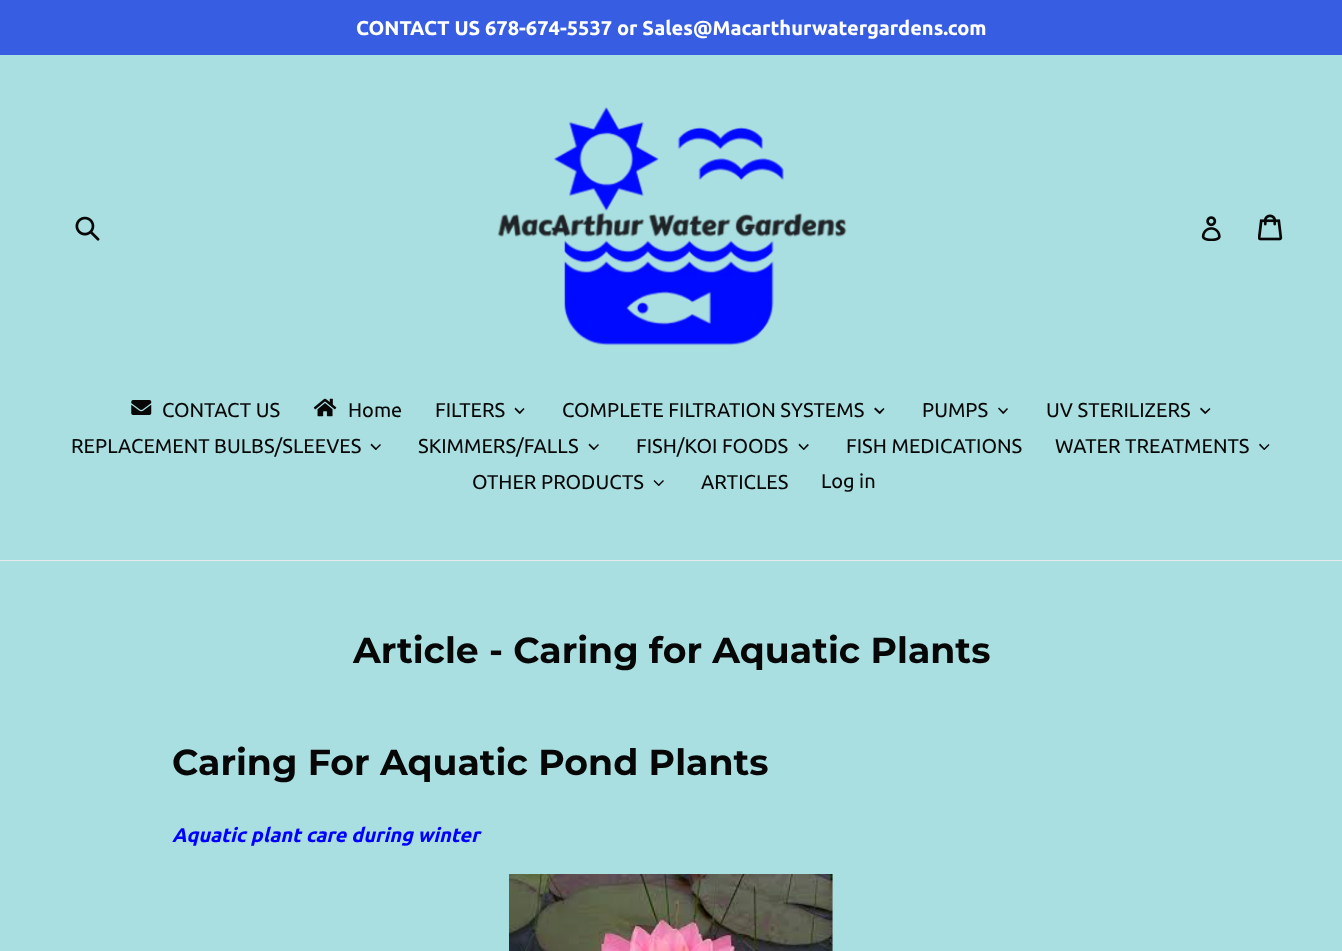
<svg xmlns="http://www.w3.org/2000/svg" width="1342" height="951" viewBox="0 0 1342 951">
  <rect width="100%" height="100%" fill="rgb(170,223,225)"/>
  <rect x="0" y="0" width="1342" height="55" fill="rgb(55,93,227)"/>
  <text x="356" y="35" font-family="Ubuntu" font-size="20" font-weight="bold" fill="rgb(255,255,255)">CONTACT US 678-674-5537 or Sales@Macarthurwatergardens.com</text>
  <image x="75" y="216" width="25" height="25" href="pic1.png"/>
  <image x="497" y="107" width="350" height="239" href="pic2.png"/>
  <image x="1201" y="216" width="20" height="25" href="pic3.png"/>
  <image x="1258" y="214" width="25" height="27" href="pic4.png"/>
  <rect x="0" y="560" width="1342" height="1" fill="rgb(232,233,235)"/>
  <image x="131" y="400" width="21" height="15" href="pic5.png"/>
  <text x="162" y="417" font-family="Ubuntu" font-size="20" fill="rgb(7,7,7)">CONTACT US</text>
  <image x="313" y="398" width="24" height="19" href="pic6.png"/>
  <g font-family="Ubuntu" font-size="20" fill="rgb(7,7,7)">
    <text x="348" y="417">Home</text>
    <text x="435" y="417">FILTERS</text>
  </g>
  <path d="M523.5 408L524.5 409L520 414L519 412.5Z" fill="rgb(7,7,7)"/>
  <path d="M515.5 407.5L520.5 412.5L519.5 414L514.5 409Z" fill="rgb(7,7,7)"/>
  <text x="562" y="417" font-family="Ubuntu" font-size="20" fill="rgb(7,7,7)">COMPLETE FILTRATION SYSTEMS</text>
  <path d="M883.5 408L884.5 409L880 414L878.5 412.5Z" fill="rgb(7,7,7)"/>
  <path d="M875.5 407.5L880.5 412.5L879.5 414L874 409Z" fill="rgb(7,7,7)"/>
  <text x="922" y="417" font-family="Ubuntu" font-size="20" fill="rgb(7,7,7)">PUMPS</text>
  <path d="M1007 408L1008 409L1003.5 414L1002.5 412.5Z" fill="rgb(7,7,7)"/>
  <path d="M999 407.5L1004 412.5L1003 414L998 408.5Z" fill="rgb(7,7,7)"/>
  <text x="1046" y="417" font-family="Ubuntu" font-size="20" fill="rgb(7,7,7)">UV STERILIZERS</text>
  <path d="M1209.5 408L1210.5 409L1205.5 414L1204.5 412.5Z" fill="rgb(7,7,7)"/>
  <path d="M1201 407.5L1206 412.5L1205 414L1200 409Z" fill="rgb(7,7,7)"/>
  <text x="71" y="453" font-family="Ubuntu" font-size="20" fill="rgb(7,7,7)">REPLACEMENT BULBS/SLEEVES</text>
  <path d="M380 444L381 445L376 450L375 449Z" fill="rgb(7,7,7)"/>
  <path d="M371.5 443.5L377 449L375.5 450L370.5 445Z" fill="rgb(7,7,7)"/>
  <text x="418" y="453" font-family="Ubuntu" font-size="20" fill="rgb(7,7,7)">SKIMMERS/FALLS</text>
  <path d="M598 444L599 445L594 450L593 449Z" fill="rgb(7,7,7)"/>
  <path d="M589.5 443.5L595 449L593.5 450L588.5 445Z" fill="rgb(7,7,7)"/>
  <text x="636" y="453" font-family="Ubuntu" font-size="20" fill="rgb(7,7,7)">FISH/KOI FOODS</text>
  <path d="M807.5 444L809 445L804 450L803 449Z" fill="rgb(7,7,7)"/>
  <path d="M799.5 443.5L804.5 449L803.5 450L798.5 445Z" fill="rgb(7,7,7)"/>
  <g font-family="Ubuntu" font-size="20" fill="rgb(7,7,7)">
    <text x="846" y="453">FISH MEDICATIONS</text>
    <text x="1055" y="453">WATER TREATMENTS</text>
  </g>
  <path d="M1268.5 444L1269.5 445L1264.5 450L1263.5 449Z" fill="rgb(7,7,7)"/>
  <path d="M1260 443.5L1265 449L1264 450L1259 445Z" fill="rgb(7,7,7)"/>
  <text x="472" y="489" font-family="Ubuntu" font-size="20" fill="rgb(7,7,7)">OTHER PRODUCTS</text>
  <path d="M663 480L664 481L659 486L658 485Z" fill="rgb(7,7,7)"/>
  <path d="M654.5 480L659.5 485L658.5 486L653.5 481Z" fill="rgb(7,7,7)"/>
  <g font-family="Ubuntu" font-size="20" fill="rgb(7,7,7)">
    <text x="701" y="489">ARTICLES</text>
    <text x="821" y="488">Log in</text>
  </g>
  <g font-family="Montserrat" font-size="36.25" font-weight="100" fill="rgb(7,7,7)">
    <text x="353" y="663">Article - Caring for Aquatic Plants</text>
    <text x="172" y="775">Caring For Aquatic Pond Plants</text>
  </g>
  <text x="172" y="842" font-family="Ubuntu" font-size="20" font-weight="bold" font-style="italic" fill="rgb(0,0,255)">Aquatic plant care during winter</text>
  <image x="509" y="874" width="324" height="77" href="pic7.png"/>
</svg>
